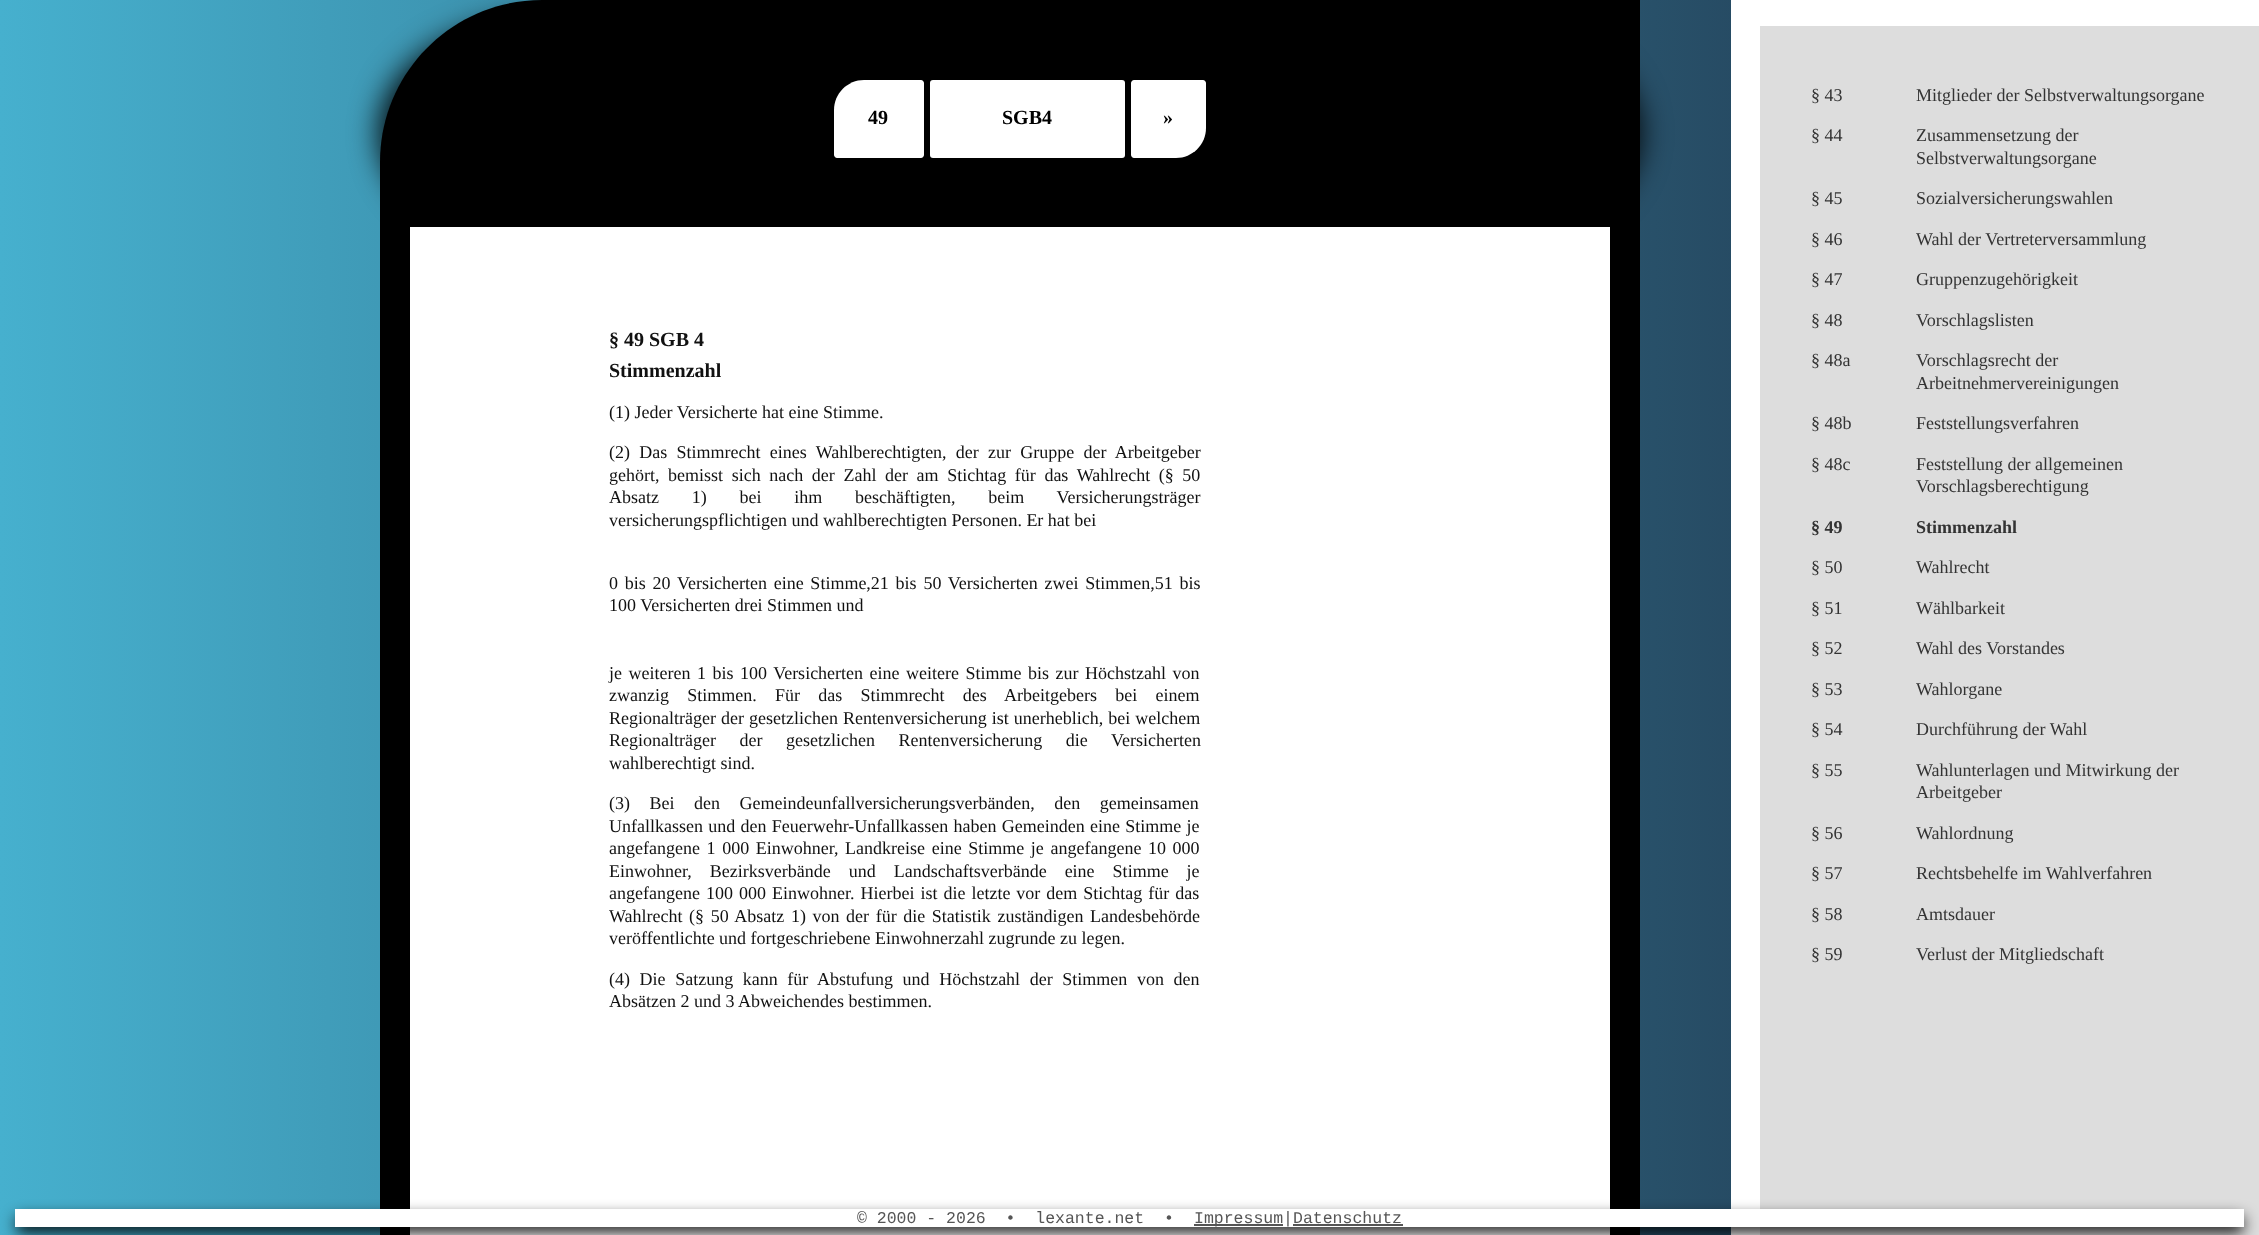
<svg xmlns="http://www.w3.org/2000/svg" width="2259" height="1235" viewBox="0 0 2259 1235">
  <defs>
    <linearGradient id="g1" gradientUnits="userSpaceOnUse" x1="0" y1="637" x2="2259" y2="637"><stop offset="0" stop-color="rgb(70,176,206)"/><stop offset="1" stop-color="rgb(29,45,68)"/></linearGradient>
  </defs>
  <rect width="100%" height="100%" fill="rgb(255,255,255)"/>
  <rect x="0" y="0" width="1731" height="1235" fill="url(#g1)"/>
  <rect x="380" y="20" width="1260" height="226" rx="162" fill="rgb(0,0,0)" filter="blur(15px)"/>
  <path d="M542 0H1640V212C1640 220.5 1633.5 227 1625 227H395C386.5 227 380 220.5 380 212V162C380 72.5 452.5 0 542 0Z" fill="rgb(0,0,0)"/>
  <path d="M380 198V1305H1640V198ZM410 226V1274H1610V226Z" fill="rgb(0,0,0)" fill-rule="evenodd"/>
  <rect x="410" y="227" width="1200" height="1008" fill="rgb(255,255,255)"/>
  <g font-family="Liberation Serif" font-size="20" font-weight="bold" fill="rgb(17,17,17)">
    <text>
      <tspan x="609" y="346">§ 49 SGB 4</tspan>
      <tspan x="609" y="377">Stimmenzahl</tspan>
    </text>
  </g>
  <g font-family="Liberation Serif" font-size="18" fill="rgb(17,17,17)">
    <text x="609" y="418">(1) Jeder Versicherte hat eine Stimme.</text>
    <text>
      <tspan x="609" y="458" word-spacing="4.75">(2) Das Stimmrecht eines Wahlberechtigten, der zur Gruppe der Arbeitgeber</tspan>
      <tspan x="609" y="481" word-spacing="4.1">gehört, bemisst sich nach der Zahl der am Stichtag für das Wahlrecht (§ 50</tspan>
      <tspan x="609" y="503" word-spacing="28.25">Absatz 1) bei ihm beschäftigten, beim Versicherungsträger</tspan>
      <tspan x="609" y="526">versicherungspflichtigen und wahlberechtigten Personen. Er hat bei</tspan>
    </text>
    <text>
      <tspan x="609" y="589" word-spacing="2.25">0 bis 20 Versicherten eine Stimme,21 bis 50 Versicherten zwei Stimmen,51 bis</tspan>
      <tspan x="609" y="611">100 Versicherten drei Stimmen und</tspan>
    </text>
    <text>
      <tspan x="609" y="679" word-spacing="2">je weiteren 1 bis 100 Versicherten eine weitere Stimme bis zur Höchstzahl von</tspan>
      <tspan x="609" y="701" word-spacing="13.75">zwanzig Stimmen. Für das Stimmrecht des Arbeitgebers bei einem</tspan>
      <tspan x="609" y="724" word-spacing="0.5">Regionalträger der gesetzlichen Rentenversicherung ist unerheblich, bei welchem</tspan>
      <tspan x="609" y="746" word-spacing="19">Regionalträger der gesetzlichen Rentenversicherung die Versicherten</tspan>
      <tspan x="609" y="769">wahlberechtigt sind.</tspan>
    </text>
    <text>
      <tspan x="609" y="809" word-spacing="15">(3) Bei den Gemeindeunfallversicherungsverbänden, den gemeinsamen</tspan>
      <tspan x="609" y="832" word-spacing="0.75">Unfallkassen und den Feuerwehr-Unfallkassen haben Gemeinden eine Stimme je</tspan>
      <tspan x="609" y="854" word-spacing="2.1">angefangene 1 000 Einwohner, Landkreise eine Stimme je angefangene 10 000</tspan>
      <tspan x="609" y="877" word-spacing="13.5">Einwohner, Bezirksverbände und Landschaftsverbände eine Stimme je</tspan>
      <tspan x="609" y="899" word-spacing="1.5">angefangene 100 000 Einwohner. Hierbei ist die letzte vor dem Stichtag für das</tspan>
      <tspan x="609" y="922" word-spacing="2.1">Wahlrecht (§ 50 Absatz 1) von der für die Statistik zuständigen Landesbehörde</tspan>
      <tspan x="609" y="944">veröffentlichte und fortgeschriebene Einwohnerzahl zugrunde zu legen.</tspan>
    </text>
    <text>
      <tspan x="609" y="985" word-spacing="5.1">(4) Die Satzung kann für Abstufung und Höchstzahl der Stimmen von den</tspan>
      <tspan x="609" y="1007">Absätzen 2 und 3 Abweichendes bestimmen.</tspan>
    </text>
  </g>
  <rect x="1760" y="26" width="499" height="1209" fill="rgb(221,221,221)"/>
  <g font-family="Liberation Serif" font-size="18" fill="rgb(51,51,51)">
    <text x="1811" y="101">§ 43</text>
    <text x="1916" y="101">Mitglieder der Selbstverwaltungsorgane</text>
    <text x="1811" y="141">§ 44</text>
    <text>
      <tspan x="1916" y="141">Zusammensetzung der</tspan>
      <tspan x="1916" y="164">Selbstverwaltungsorgane</tspan>
    </text>
    <text x="1811" y="204">§ 45</text>
    <text x="1916" y="204">Sozialversicherungswahlen</text>
    <text x="1811" y="245">§ 46</text>
    <text x="1916" y="245">Wahl der Vertreterversammlung</text>
    <text x="1811" y="285">§ 47</text>
    <text x="1916" y="285">Gruppenzugehörigkeit</text>
    <text x="1811" y="326">§ 48</text>
    <text x="1916" y="326">Vorschlagslisten</text>
    <text x="1811" y="366">§ 48a</text>
    <text>
      <tspan x="1916" y="366">Vorschlagsrecht der</tspan>
      <tspan x="1916" y="389">Arbeitnehmervereinigungen</tspan>
    </text>
    <text x="1811" y="429">§ 48b</text>
    <text x="1916" y="429">Feststellungsverfahren</text>
    <text x="1811" y="470">§ 48c</text>
    <text>
      <tspan x="1916" y="470">Feststellung der allgemeinen</tspan>
      <tspan x="1916" y="492">Vorschlagsberechtigung</tspan>
    </text>
  </g>
  <g font-family="Liberation Serif" font-size="18" font-weight="bold" fill="rgb(51,51,51)">
    <text x="1811" y="533">§ 49</text>
    <text x="1916" y="533">Stimmenzahl</text>
  </g>
  <g font-family="Liberation Serif" font-size="18" fill="rgb(51,51,51)">
    <text x="1811" y="573">§ 50</text>
    <text x="1916" y="573">Wahlrecht</text>
    <text x="1811" y="614">§ 51</text>
    <text x="1916" y="614">Wählbarkeit</text>
    <text x="1811" y="654">§ 52</text>
    <text x="1916" y="654">Wahl des Vorstandes</text>
    <text x="1811" y="695">§ 53</text>
    <text x="1916" y="695">Wahlorgane</text>
    <text x="1811" y="735">§ 54</text>
    <text x="1916" y="735">Durchführung der Wahl</text>
    <text x="1811" y="776">§ 55</text>
    <text>
      <tspan x="1916" y="776">Wahlunterlagen und Mitwirkung der</tspan>
      <tspan x="1916" y="798">Arbeitgeber</tspan>
    </text>
    <text x="1811" y="839">§ 56</text>
    <text x="1916" y="839">Wahlordnung</text>
    <text x="1811" y="879">§ 57</text>
    <text x="1916" y="879">Rechtsbehelfe im Wahlverfahren</text>
    <text x="1811" y="920">§ 58</text>
    <text x="1916" y="920">Amtsdauer</text>
    <text x="1811" y="960">§ 59</text>
    <text x="1916" y="960">Verlust der Mitgliedschaft</text>
  </g>
  <path d="M864 80H921C922.5 80 924 81.5 924 83V155C924 156.5 922.5 158 921 158H837C835.5 158 834 156.5 834 155V110C834 93.5 847.5 80 864 80Z" fill="rgb(255,255,255)"/>
  <text x="868" y="124" font-family="Liberation Serif" font-size="20" font-weight="bold" fill="rgb(0,0,0)">49</text>
  <rect x="930" y="80" width="195" height="78" rx="3" fill="rgb(255,255,255)"/>
  <text x="1002" y="124" font-family="Liberation Serif" font-size="20" font-weight="bold" fill="rgb(0,0,0)">SGB4</text>
  <path d="M1134 80H1203C1204.5 80 1206 81.5 1206 83V128C1206 144.5 1192.5 158 1176 158H1134C1132.5 158 1131 156.5 1131 155V83C1131 81.5 1132.5 80 1134 80Z" fill="rgb(255,255,255)"/>
  <text x="1163" y="124" font-family="Liberation Serif" font-size="20" font-weight="bold" fill="rgb(0,0,0)">»</text>
  <rect x="17" y="1217" width="2226" height="15" fill="rgb(0,0,0)" filter="blur(7.5px)"/>
  <rect x="15" y="1209" width="2229" height="18" fill="rgb(255,255,255)"/>
  <text x="857" y="1223" font-family="Liberation Mono" font-size="16.5" fill="rgb(85,85,85)" xml:space="preserve">© 2000 - 2026  •  lexante.net  •</text>
  <rect x="1194" y="1224" width="89" height="2" fill="rgb(85,85,85)"/>
  <text x="1194" y="1223" font-family="Liberation Mono" font-size="16.5" fill="rgb(85,85,85)">Impressum|Datenschutz</text>
  <rect x="1293" y="1224" width="110" height="2" fill="rgb(85,85,85)"/>
</svg>
